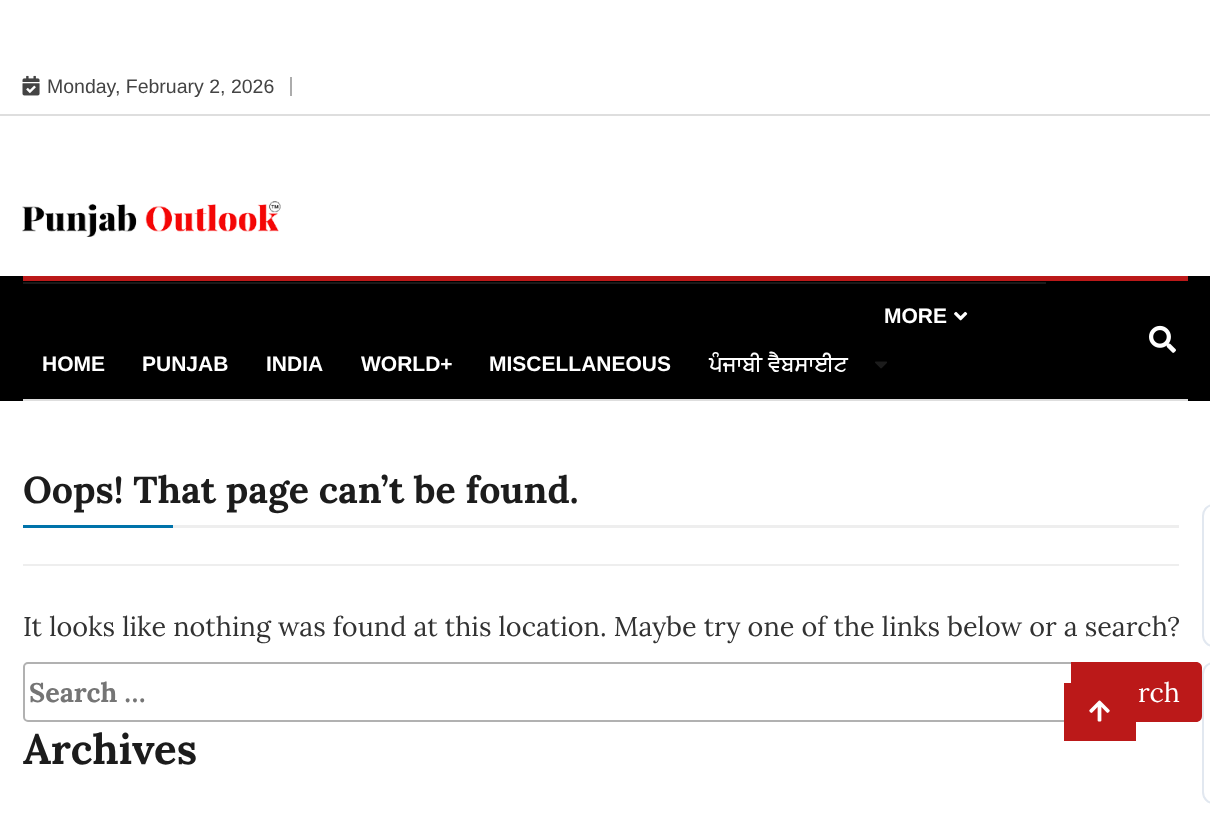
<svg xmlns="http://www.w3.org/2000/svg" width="1210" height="816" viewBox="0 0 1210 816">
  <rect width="100%" height="100%" fill="rgb(255,255,255)"/>
  <rect x="0" y="114" width="1210" height="2" fill="rgb(222,222,222)"/>
  <rect x="290" y="77" width="2" height="19" fill="rgb(172,172,172)"/>
  <image x="22" y="75" width="18" height="21" href="pic1.png"/>
  <text x="47" y="93" font-family="Liberation Sans" font-size="19.5" fill="rgb(68,68,68)">Monday, February 2, 2026</text>
  <image x="22" y="201" width="259" height="36" href="pic2.png"/>
  <rect x="0" y="276" width="1210" height="125" fill="rgb(0,0,0)"/>
  <rect x="23" y="276" width="1165" height="5" fill="rgb(187,25,25)"/>
  <rect x="23" y="399" width="1165" height="2" fill="rgb(222,222,222)"/>
  <rect x="23" y="282" width="1023" height="2" fill="rgb(26,26,26)"/>
  <text x="884" y="323" font-family="Liberation Sans" font-size="21" font-weight="bold" fill="rgb(255,255,255)">MORE</text>
  <image x="954" y="311" width="14" height="10" href="pic3.png"/>
  <image x="875" y="361" width="12" height="8" href="pic4.png"/>
  <g font-family="Liberation Sans" font-size="21" font-weight="bold" fill="rgb(255,255,255)">
    <text x="42" y="371">HOME</text>
    <text x="142" y="371">PUNJAB</text>
    <text x="266" y="371">INDIA</text>
    <text x="361" y="371">WORLD+</text>
    <text x="489" y="371">MISCELLANEOUS</text>
  </g>
  <text x="709" y="371" word-spacing="1" font-family="FreeSans" font-size="21" font-weight="bold" fill="rgb(255,255,255)">ਪੰਜਾਬੀ ਵੈਬਸਾਈਟ</text>
  <image x="1149" y="325" width="27" height="28" href="pic5.png"/>
  <rect x="23" y="564" width="1156" height="2" fill="rgb(238,238,238)"/>
  <rect x="173" y="525" width="1006" height="3" fill="rgb(238,238,238)"/>
  <text x="23" y="503" font-family="Lora" font-size="37.5" font-weight="bold" fill="rgb(28,28,28)">Oops! That page can’t be found.</text>
  <rect x="23" y="525" width="150" height="3" fill="rgb(0,115,170)"/>
  <text x="23" y="636" font-family="Lora" font-size="27" fill="rgb(50,50,50)">It looks like nothing was found at this location. Maybe try one of the links below or a search?</text>
  <rect x="24" y="663" width="1154" height="58" rx="4" fill="none" stroke="rgb(177,177,177)" stroke-width="2"/>
  <text x="29" y="702" font-family="Lora" font-size="27" font-weight="bold" fill="rgb(117,117,117)">Search …</text>
  <path d="M1071 662H1196C1199.5 662 1202 664.5 1202 668V716C1202 719.5 1199.5 722 1196 722H1071Z" fill="rgb(187,25,25)"/>
  <text x="1138" y="702" font-family="Lora" font-size="27" fill="rgb(255,255,255)">rch</text>
  <text x="23" y="764" font-family="Lora" font-size="42" font-weight="bold" fill="rgb(28,28,28)">Archives</text>
  <rect x="1203" y="505" width="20" height="141" rx="11" fill="none" stroke="rgb(226,232,240)" stroke-width="2"/>
  <rect x="1203" y="663" width="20" height="140" rx="11" fill="none" stroke="rgb(226,232,240)" stroke-width="2"/>
  <rect x="1064" y="683" width="72" height="58" fill="rgb(187,25,25)"/>
  <image x="1089" y="700" width="21" height="22" href="pic6.png"/>
</svg>
